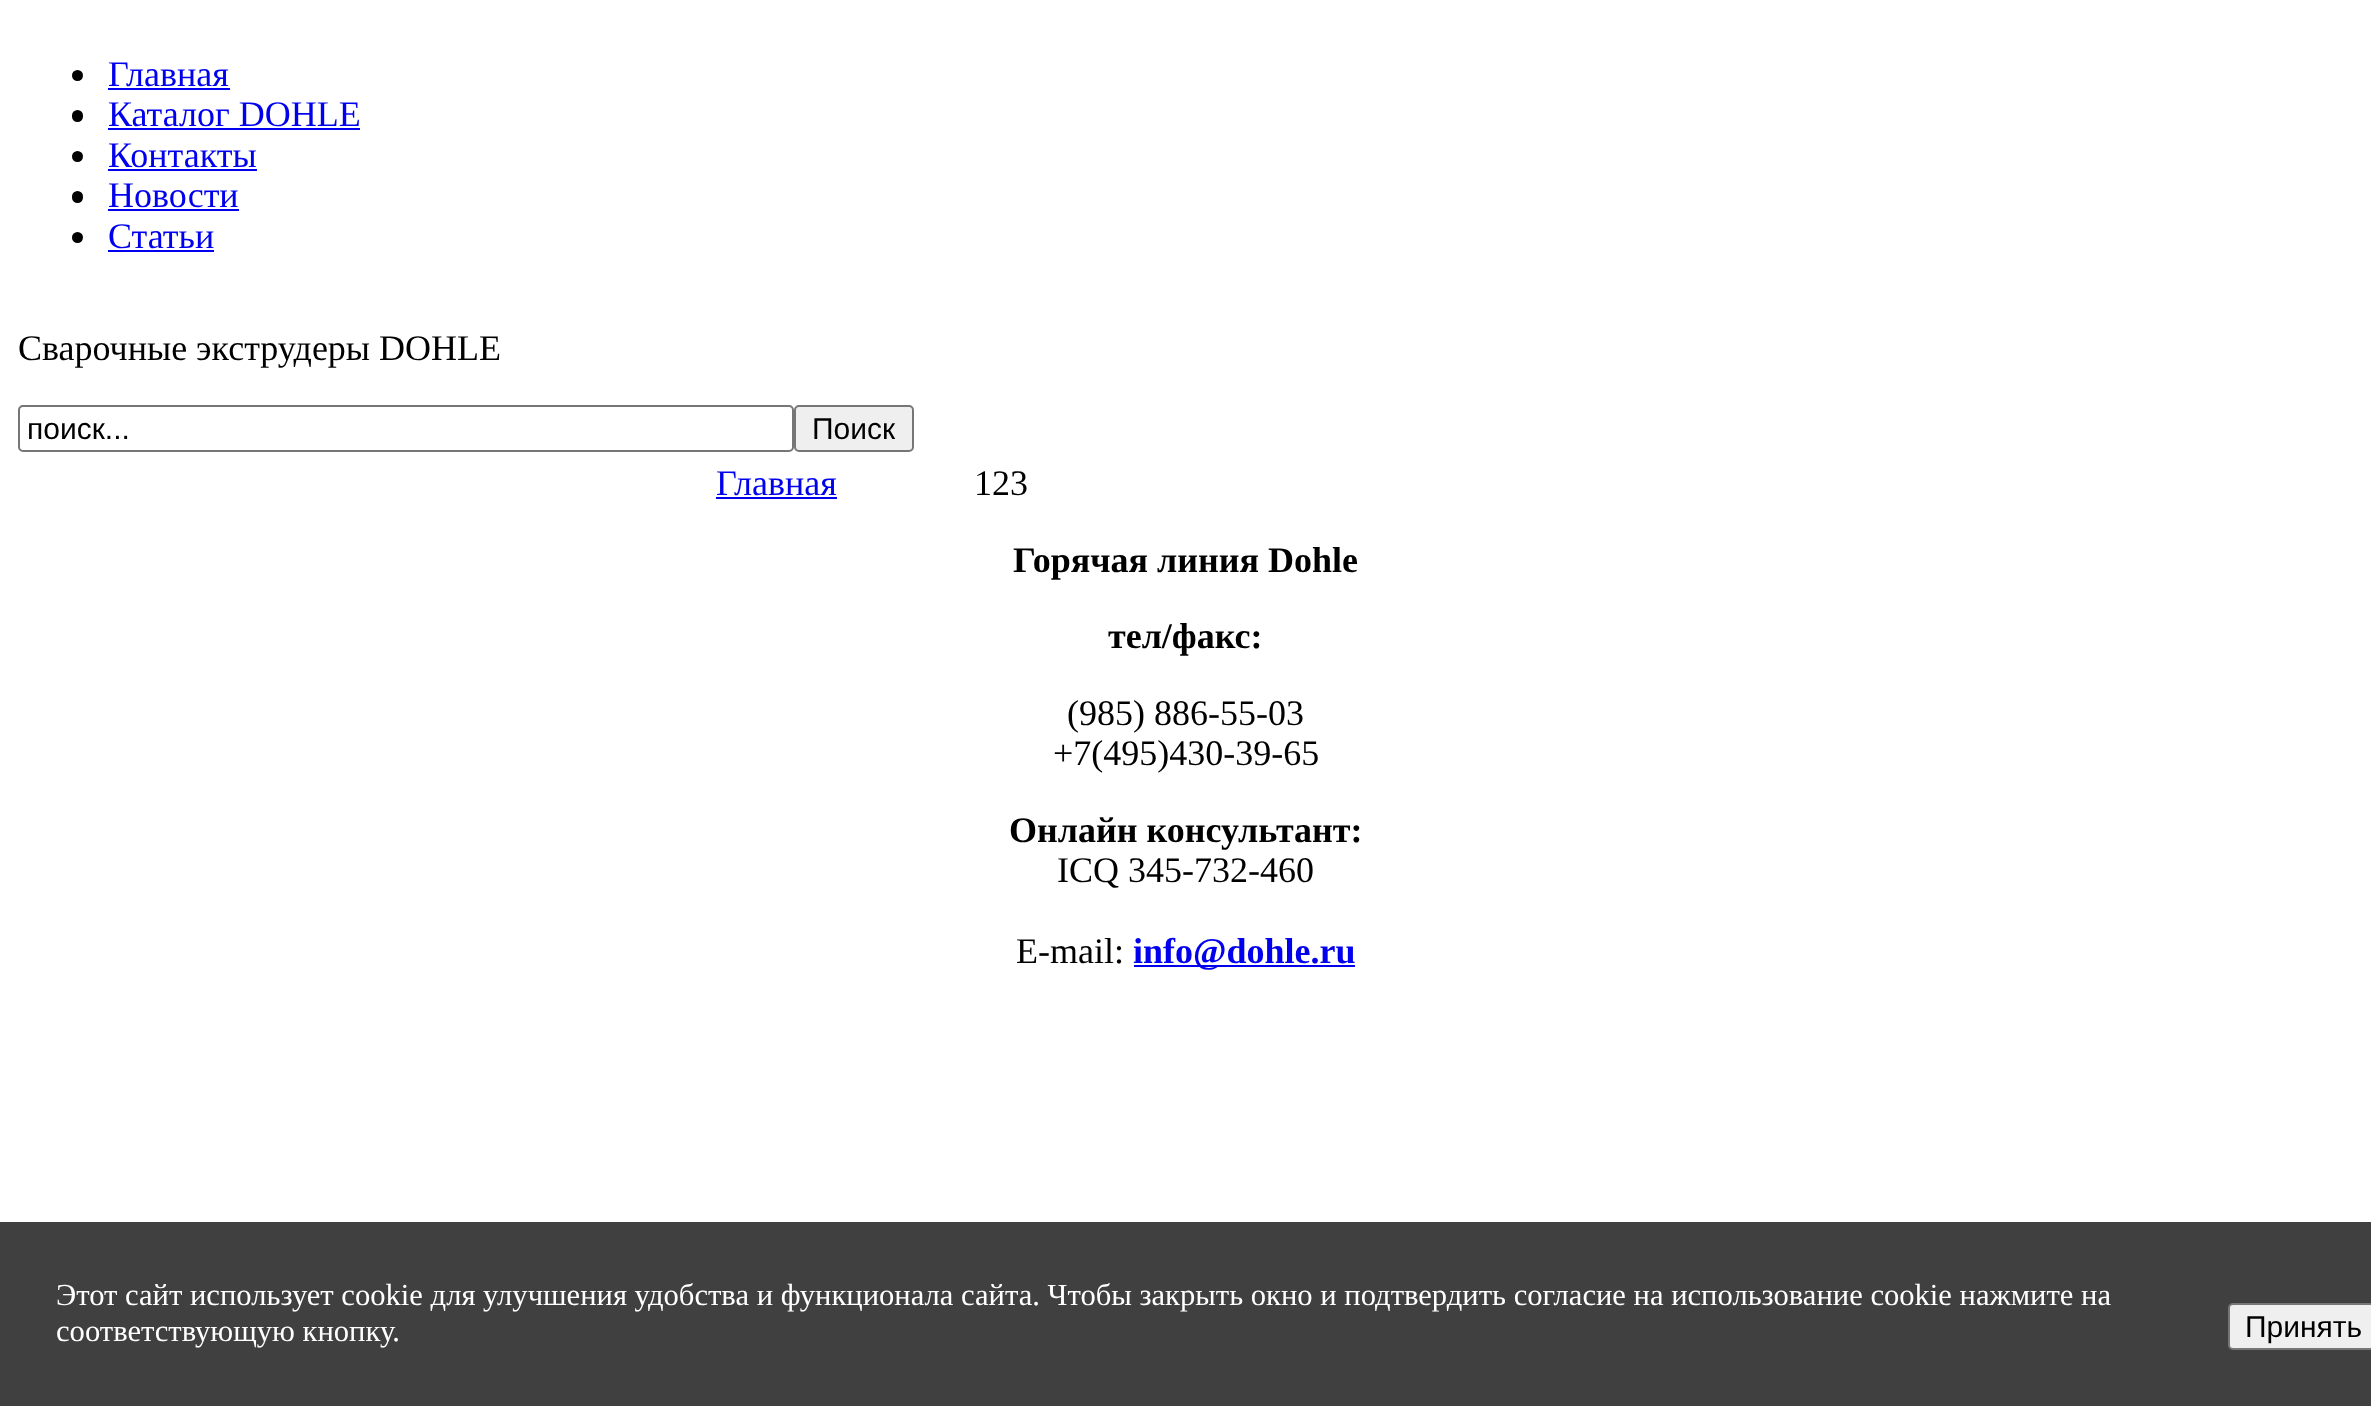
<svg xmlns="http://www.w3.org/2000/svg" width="2371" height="1406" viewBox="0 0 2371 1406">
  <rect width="100%" height="100%" fill="rgb(255,255,255)"/>
  <circle cx="77.5" cy="75.5" r="5.5" fill="rgb(0,0,0)"/>
  <text x="108" y="86" font-family="Liberation Serif" font-size="36" fill="rgb(0,0,238)">Главная</text>
  <rect x="108" y="88" width="122" height="2" fill="rgb(0,0,238)"/>
  <rect x="72" y="110" width="11" height="12" rx="5.5" fill="rgb(0,0,0)"/>
  <text x="108" y="126" font-family="Liberation Serif" font-size="36" fill="rgb(0,0,238)">Каталог DOHLE</text>
  <rect x="108" y="128" width="252" height="2" fill="rgb(0,0,238)"/>
  <circle cx="77.5" cy="156.5" r="5.5" fill="rgb(0,0,0)"/>
  <text x="108" y="167" font-family="Liberation Serif" font-size="36" fill="rgb(0,0,238)">Контакты</text>
  <rect x="108" y="169" width="149" height="2" fill="rgb(0,0,238)"/>
  <rect x="72" y="191" width="11" height="12" rx="5.5" fill="rgb(0,0,0)"/>
  <text x="108" y="207" font-family="Liberation Serif" font-size="36" fill="rgb(0,0,238)">Новости</text>
  <rect x="108" y="209" width="131" height="2" fill="rgb(0,0,238)"/>
  <circle cx="77.5" cy="237.5" r="5.5" fill="rgb(0,0,0)"/>
  <text x="108" y="248" font-family="Liberation Serif" font-size="36" fill="rgb(0,0,238)">Статьи</text>
  <rect x="108" y="250" width="106" height="2" fill="rgb(0,0,238)"/>
  <text x="18" y="360" font-family="Liberation Serif" font-size="36" fill="rgb(0,0,0)">Сварочные экструдеры DOHLE</text>
  <rect x="19" y="406" width="774" height="45" rx="4" fill="none" stroke="rgb(118,118,118)" stroke-width="2"/>
  <text x="27" y="439" font-family="Liberation Sans" font-size="30" fill="rgb(0,0,0)">поиск...</text>
  <rect x="795" y="406" width="118" height="45" rx="4" fill="rgb(239,239,239)" stroke="rgb(118,118,118)" stroke-width="2"/>
  <text x="812" y="439" font-family="Liberation Sans" font-size="30" fill="rgb(0,0,0)">Поиск</text>
  <text x="716" y="495" font-family="Liberation Serif" font-size="36" fill="rgb(0,0,238)">Главная</text>
  <rect x="716" y="497" width="121" height="2" fill="rgb(0,0,238)"/>
  <text x="974" y="495" font-family="Liberation Serif" font-size="36" fill="rgb(0,0,0)">123</text>
  <g font-family="Liberation Serif" font-size="36" font-weight="bold" fill="rgb(0,0,0)">
    <text x="1013" y="572">Горячая линия Dohle</text>
    <text x="1108" y="648">тел/факс:</text>
  </g>
  <g font-family="Liberation Serif" font-size="36" fill="rgb(0,0,0)">
    <text x="1067" y="725">(985) 886-55-03</text>
    <text x="1053" y="765">+7(495)430-39-65</text>
  </g>
  <text x="1009" y="842" font-family="Liberation Serif" font-size="36" font-weight="bold" fill="rgb(0,0,0)">Онлайн консультант:</text>
  <g font-family="Liberation Serif" font-size="36" fill="rgb(0,0,0)">
    <text x="1057" y="882">ICQ 345-732-460</text>
    <text x="1016" y="963">E-mail:</text>
  </g>
  <rect x="1134" y="965" width="221" height="2" fill="rgb(0,0,238)"/>
  <text x="1133" y="963" font-family="Liberation Serif" font-size="36" font-weight="bold" fill="rgb(0,0,238)">info@dohle.ru</text>
  <rect x="0" y="1222" width="2371" height="184" fill="rgb(64,64,64)"/>
  <g font-family="Liberation Serif" font-size="30.6" fill="rgb(255,255,255)">
    <text>
      <tspan x="56" y="1305">Этот сайт использует cookie для улучшения удобства и функционала сайта. Чтобы закрыть окно и подтвердить согласие на использование cookie нажмите на</tspan>
      <tspan x="56" y="1341">соответствующую кнопку.</tspan>
    </text>
  </g>
  <rect x="2229" y="1304" width="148" height="45" rx="4" fill="rgb(239,239,239)" stroke="rgb(118,118,118)" stroke-width="2"/>
  <text x="2245" y="1337" font-family="Liberation Sans" font-size="30" fill="rgb(0,0,0)">Принять</text>
</svg>
